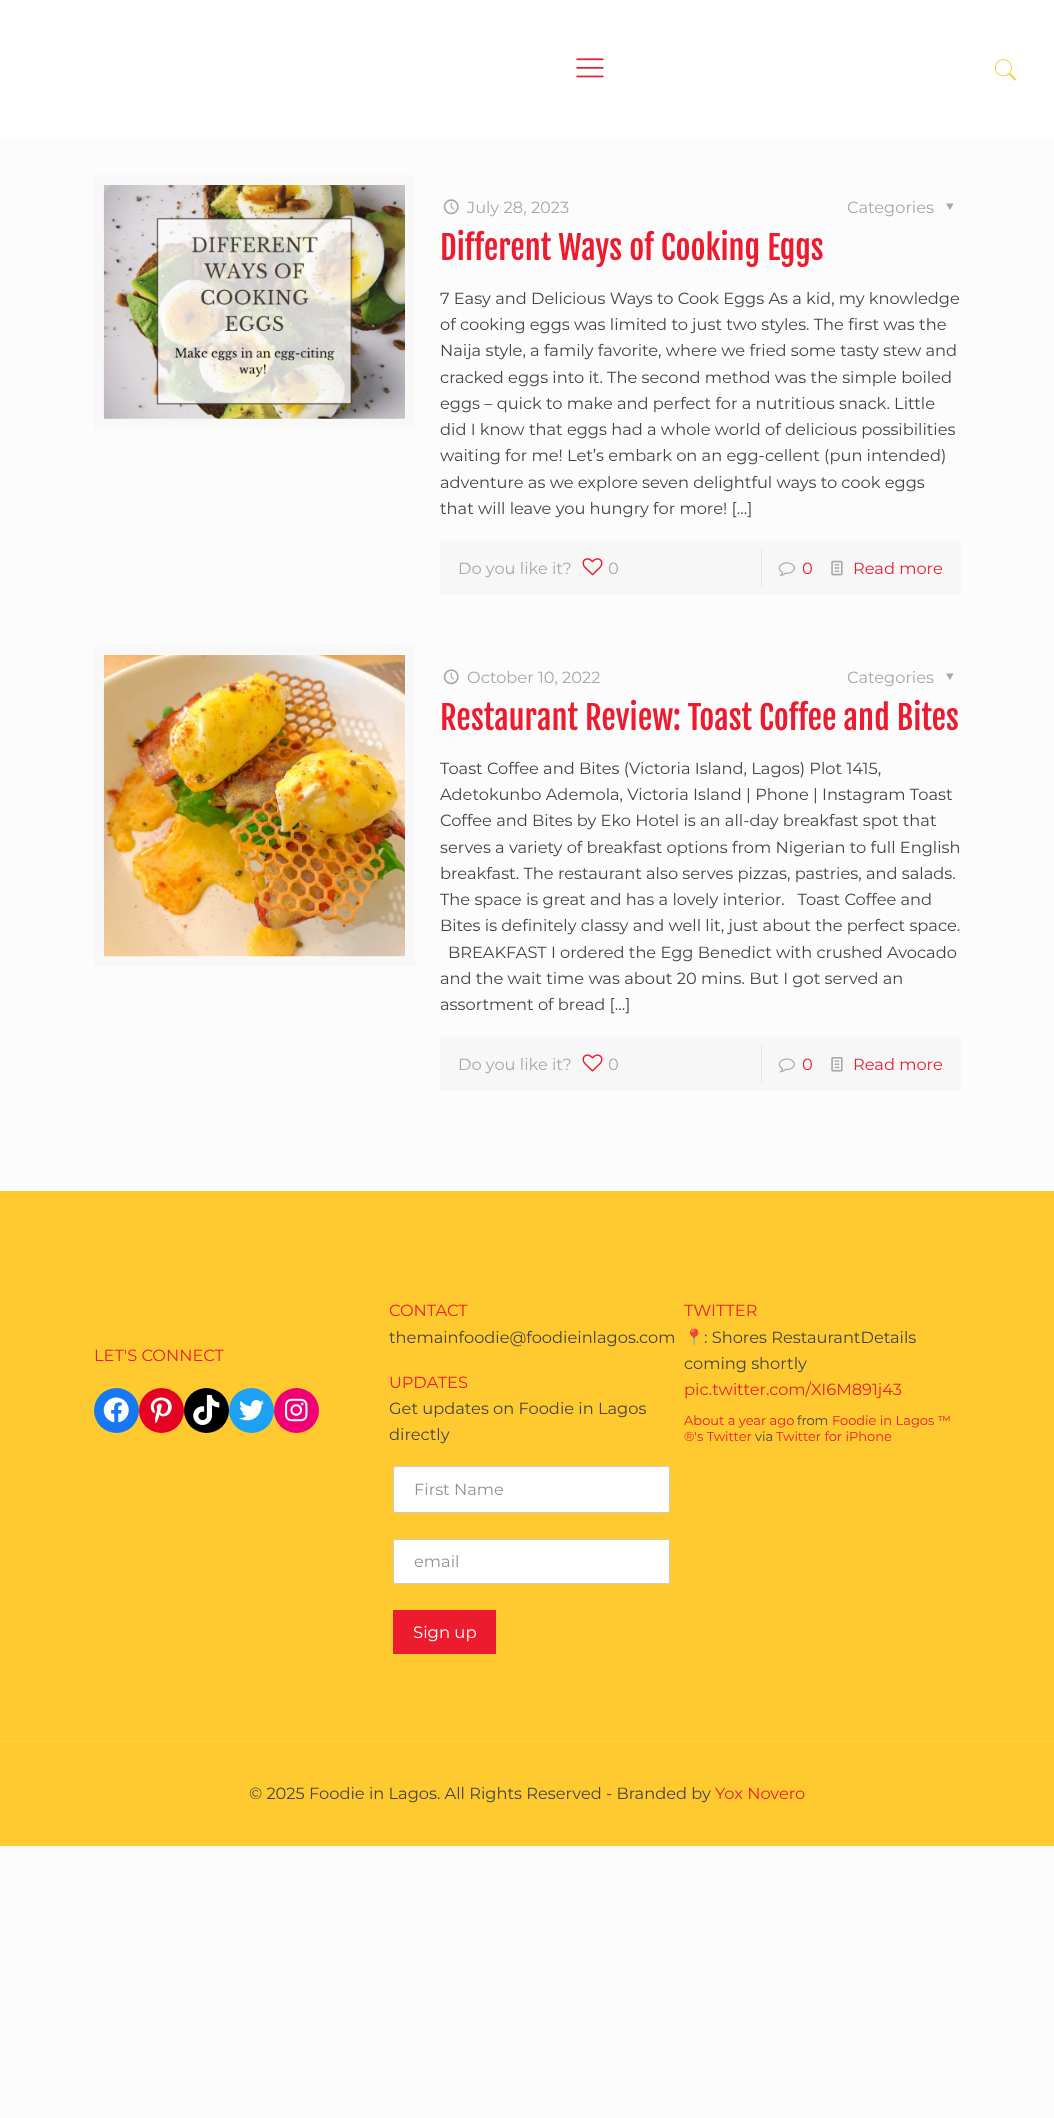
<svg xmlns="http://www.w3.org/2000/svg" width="1054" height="2118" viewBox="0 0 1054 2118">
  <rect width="100%" height="100%" fill="rgb(252,252,252)"/>
  <rect x="0" y="0" width="1054" height="138" fill="rgb(255,255,255)"/>
  <image x="576" y="58" width="28" height="20" href="pic1.png"/>
  <image x="994" y="59" width="23" height="22" href="pic2.png"/>
  <rect x="99" y="180" width="311" height="244" fill="none" stroke="rgb(248,248,248)" stroke-width="10"/>
  <image x="103" y="185" width="302" height="234" href="pic3.png"/>
  <image x="443" y="199" width="16" height="16" href="pic4.png"/>
  <g font-family="Montserrat" font-size="16.25" fill="rgb(168,168,168)">
    <text x="467" y="213">July 28, 2023</text>
    <text x="847" y="213">Categories</text>
  </g>
  <path d="M953.5 203.5L950 210L946 203.5Z" fill="rgb(168,168,168)"/>
  <text x="440" y="260" font-family="Fjalla One" font-size="32.5" fill="rgb(236,27,46)">Different Ways of Cooking Eggs</text>
  <g font-family="Montserrat" font-size="16.25" fill="rgb(68,68,68)">
    <text>
      <tspan x="440" y="304">7 Easy and Delicious Ways to Cook Eggs As a kid, my knowledge</tspan>
      <tspan x="440" y="330">of cooking eggs was limited to just two styles. The first was the</tspan>
      <tspan x="440" y="356">Naija style, a family favorite, where we fried some tasty stew and</tspan>
      <tspan x="440" y="383">cracked eggs into it. The second method was the simple boiled</tspan>
      <tspan x="440" y="409">eggs – quick to make and perfect for a nutritious snack. Little</tspan>
      <tspan x="440" y="435">did I know that eggs had a whole world of delicious possibilities</tspan>
      <tspan x="440" y="461">waiting for me! Let’s embark on an egg-cellent (pun intended)</tspan>
      <tspan x="440" y="488">adventure as we explore seven delightful ways to cook eggs</tspan>
      <tspan x="440" y="514">that will leave you hungry for more! […]</tspan>
    </text>
  </g>
  <rect x="440" y="540" width="521" height="55" fill="rgb(247,247,247)"/>
  <text x="458" y="574" font-family="Montserrat" font-size="16.25" fill="rgb(168,168,168)">Do you like it?</text>
  <image x="582" y="558" width="21" height="18" href="pic5.png"/>
  <text x="608" y="574" font-family="Montserrat" font-size="16.25" fill="rgb(168,168,168)">0</text>
  <rect x="761" y="549" width="1" height="37" fill="rgb(227,227,227)"/>
  <image x="778" y="562" width="17" height="15" href="pic6.png"/>
  <text x="802" y="574" font-family="Montserrat" font-size="16.25" fill="rgb(236,27,46)">0</text>
  <image x="831" y="560" width="12" height="16" href="pic7.png"/>
  <text x="853" y="574" font-family="Montserrat" font-size="16.25" fill="rgb(236,27,46)">Read more</text>
  <rect x="99" y="650" width="311" height="311" fill="none" stroke="rgb(248,248,248)" stroke-width="10"/>
  <image x="103" y="655" width="302" height="302" href="pic8.png"/>
  <image x="443" y="669" width="16" height="16" href="pic4.png"/>
  <g font-family="Montserrat" font-size="16.25" fill="rgb(168,168,168)">
    <text x="467" y="683">October 10, 2022</text>
    <text x="847" y="683">Categories</text>
  </g>
  <path d="M953.5 673.5L950 680L946 673.5Z" fill="rgb(168,168,168)"/>
  <text x="440" y="730" font-family="Fjalla One" font-size="32.5" fill="rgb(236,27,46)">Restaurant Review: Toast Coffee and Bites</text>
  <g font-family="Montserrat" font-size="16.25" fill="rgb(68,68,68)">
    <text xml:space="preserve"><tspan x="440" y="774">Toast Coffee and Bites (Victoria Island, Lagos) Plot 1415,</tspan><tspan x="440" y="800">Adetokunbo Ademola, Victoria Island | Phone | Instagram Toast</tspan><tspan x="440" y="826">Coffee and Bites by Eko Hotel is an all-day breakfast spot that</tspan><tspan x="440" y="853">serves a variety of breakfast options from Nigerian to full English</tspan><tspan x="440" y="879">breakfast. The restaurant also serves pizzas, pastries, and salads.</tspan><tspan x="440" y="905">The space is great and has a lovely interior.   Toast Coffee and</tspan><tspan x="440" y="931">Bites is definitely classy and well lit, just about the perfect space.</tspan></text>
    <text x="448" y="958">BREAKFAST I ordered the Egg Benedict with crushed Avocado</text>
    <text>
      <tspan x="440" y="984">and the wait time was about 20 mins. But I got served an</tspan>
      <tspan x="440" y="1010">assortment of bread […]</tspan>
    </text>
  </g>
  <rect x="440" y="1036" width="521" height="55" fill="rgb(247,247,247)"/>
  <text x="458" y="1070" font-family="Montserrat" font-size="16.25" fill="rgb(168,168,168)">Do you like it?</text>
  <image x="582" y="1054" width="21" height="18" href="pic9.png"/>
  <text x="608" y="1070" font-family="Montserrat" font-size="16.25" fill="rgb(168,168,168)">0</text>
  <rect x="761" y="1045" width="1" height="38" fill="rgb(227,227,227)"/>
  <image x="778" y="1058" width="17" height="15" href="pic10.png"/>
  <text x="802" y="1070" font-family="Montserrat" font-size="16.25" fill="rgb(236,27,46)">0</text>
  <image x="831" y="1057" width="12" height="15" href="pic11.png"/>
  <text x="853" y="1070" font-family="Montserrat" font-size="16.25" fill="rgb(236,27,46)">Read more</text>
  <rect x="0" y="1191" width="1054" height="655" fill="rgb(255,202,48)"/>
  <text x="94" y="1361" font-family="Montserrat" font-size="16.25" fill="rgb(236,27,46)">LET'S CONNECT</text>
  <circle cx="116.5" cy="1410.5" r="22.5" fill="rgb(23,120,242)"/>
  <image x="103" y="1397" width="26" height="26" href="pic12.png"/>
  <circle cx="161.5" cy="1410.5" r="22.5" fill="rgb(230,1,34)"/>
  <image x="150" y="1397" width="22" height="27" href="pic13.png"/>
  <circle cx="206.5" cy="1410.5" r="22.5" fill="rgb(0,0,0)"/>
  <image x="193" y="1395" width="27" height="30" href="pic14.png"/>
  <circle cx="251.5" cy="1410.5" r="22.5" fill="rgb(29,161,242)"/>
  <image x="239" y="1400" width="25" height="21" href="pic15.png"/>
  <circle cx="296.5" cy="1410.5" r="22.5" fill="rgb(240,0,117)"/>
  <image x="285" y="1398" width="23" height="24" href="pic16.png"/>
  <text x="389" y="1316" font-family="Montserrat" font-size="16.25" fill="rgb(236,27,46)">CONTACT</text>
  <text x="389" y="1343" font-family="Montserrat" font-size="16.25" fill="rgb(68,68,68)">themainfoodie@foodieinlagos.com</text>
  <text x="389" y="1388" font-family="Montserrat" font-size="16.25" fill="rgb(236,27,46)">UPDATES</text>
  <g font-family="Montserrat" font-size="16.25" fill="rgb(68,68,68)">
    <text>
      <tspan x="389" y="1414">Get updates on Foodie in Lagos</tspan>
      <tspan x="389" y="1440">directly</tspan>
    </text>
  </g>
  <rect x="393.5" y="1466.5" width="276" height="46" rx="2" fill="rgb(255,255,255)" stroke="rgb(204,204,204)"/>
  <text x="414" y="1495" font-family="Montserrat" font-size="16.25" fill="rgb(146,146,146)">First Name</text>
  <rect x="393.5" y="1539.5" width="276" height="44" rx="2" fill="rgb(255,255,255)" stroke="rgb(204,204,204)"/>
  <text x="414" y="1567" font-family="Montserrat" font-size="16.25" fill="rgb(146,146,146)">email</text>
  <rect x="393" y="1610" width="103" height="44" fill="rgb(236,27,46)"/>
  <text x="413" y="1638" font-family="Montserrat" font-size="16.5" fill="rgb(255,255,255)">Sign up</text>
  <text x="684" y="1316" font-family="Montserrat" font-size="16.25" fill="rgb(236,27,46)">TWITTER</text>
  <text x="684" y="1343" font-family="Noto Color Emoji" font-size="16.25" fill="rgb(68,68,68)">📍</text>
  <g font-family="Montserrat" font-size="16.25" fill="rgb(68,68,68)">
    <text x="704" y="1343">: Shores RestaurantDetails</text>
    <text x="684" y="1369">coming shortly</text>
  </g>
  <text x="684" y="1395" font-family="Montserrat" font-size="16.25" fill="rgb(236,27,46)">pic.twitter.com/XI6M891j43</text>
  <text x="684" y="1425" font-family="Montserrat" font-size="13" fill="rgb(236,27,46)">About a year ago</text>
  <text x="797" y="1425" font-family="Montserrat" font-size="13" fill="rgb(68,68,68)">from</text>
  <g font-family="Montserrat" font-size="13" fill="rgb(236,27,46)">
    <text x="832" y="1425">Foodie in Lagos ™</text>
    <text x="684" y="1441">®'s Twitter</text>
  </g>
  <text x="755" y="1441" font-family="Montserrat" font-size="13" fill="rgb(68,68,68)">via</text>
  <text x="776" y="1441" font-family="Montserrat" font-size="13" fill="rgb(236,27,46)">Twitter for iPhone</text>
  <rect x="0" y="1741" width="1054" height="1" fill="rgb(255,207,69)"/>
  <text x="249" y="1799" font-family="Montserrat" font-size="16.25" fill="rgb(68,68,68)">© 2025 Foodie in Lagos. All Rights Reserved - Branded by</text>
  <text x="715" y="1799" font-family="Montserrat" font-size="16.25" fill="rgb(236,27,46)">Yox Novero</text>
</svg>
